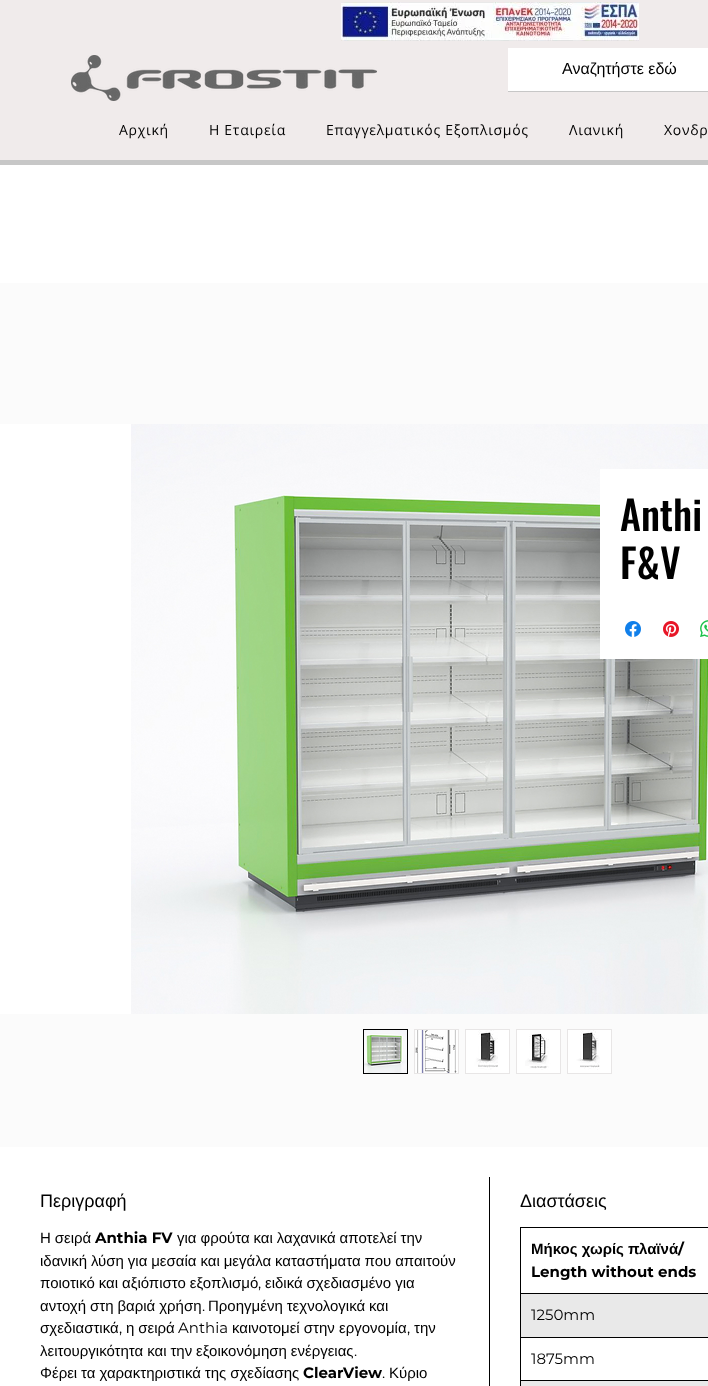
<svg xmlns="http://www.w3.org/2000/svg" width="708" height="1386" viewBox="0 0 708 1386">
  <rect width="100%" height="100%" fill="rgb(255,255,255)"/>
  <rect x="0" y="0" width="708" height="160" fill="rgb(240,235,235)"/>
  <rect x="0" y="160" width="708" height="5" fill="rgb(199,199,199)"/>
  <image x="341" y="2" width="298" height="39" href="pic1.png"/>
  <image x="71" y="55" width="306" height="46" href="pic2.png"/>
  <rect x="508" y="91" width="200" height="1" fill="rgb(199,199,199)"/>
  <rect x="508" y="48" width="200" height="43" fill="rgb(255,255,255)"/>
  <text x="562" y="74" font-family="Liberation Sans" font-size="16" fill="rgb(0,0,0)">Αναζητήστε εδώ</text>
  <g font-family="Open Sans" font-size="14" letter-spacing="0.7" fill="rgb(0,0,0)">
    <text x="119" y="135">Αρχική</text>
    <text x="209" y="135">Η Εταιρεία</text>
    <text x="326" y="135">Επαγγελματικός Εξοπλισμός</text>
    <text x="569" y="135">Λιανική</text>
    <text x="664" y="135">Χονδρ</text>
  </g>
  <rect x="0" y="283" width="708" height="864" fill="rgb(251,251,251)"/>
  <rect x="0" y="424" width="131" height="590" fill="rgb(255,255,255)"/>
  <image x="131" y="424" width="577" height="590" href="pic3.png"/>
  <rect x="363.5" y="1029.5" width="44" height="44" fill="none" stroke="rgb(0,0,0)"/>
  <image x="364" y="1030" width="43" height="43" href="pic4.png"/>
  <rect x="414" y="1029" width="45" height="45" fill="rgb(232,230,230)"/>
  <image x="415" y="1030" width="43" height="43" href="pic5.png"/>
  <rect x="465" y="1029" width="45" height="45" fill="rgb(232,230,230)"/>
  <image x="466" y="1030" width="43" height="43" href="pic6.png"/>
  <rect x="516" y="1029" width="45" height="45" fill="rgb(232,230,230)"/>
  <image x="517" y="1030" width="43" height="43" href="pic7.png"/>
  <rect x="567" y="1029" width="45" height="45" fill="rgb(232,230,230)"/>
  <image x="568" y="1030" width="43" height="43" href="pic8.png"/>
  <rect x="600" y="469" width="108" height="190" fill="rgb(255,255,255)"/>
  <g font-family="Oswald" font-size="40" font-weight="500" fill="rgb(0,0,0)">
    <text>
      <tspan x="620" y="531">Anthi</tspan>
      <tspan x="620" y="579">F&amp;V</tspan>
    </text>
  </g>
  <image x="625" y="621" width="16" height="16" href="pic9.png"/>
  <image x="663" y="621" width="16" height="16" href="pic10.png"/>
  <image x="700" y="620" width="8" height="17" href="pic11.png"/>
  <rect x="489" y="1177" width="1" height="209" fill="rgb(0,0,0)"/>
  <text x="40" y="1207" font-family="Liberation Sans" font-size="18" fill="rgb(0,0,0)">Περιγραφή</text>
  <text x="40" y="1243" word-spacing="-0.25" font-family="Liberation Sans" font-size="15" fill="rgb(0,0,0)">Η σειρά</text>
  <text x="95" y="1243" font-family="Montserrat" font-size="15" font-weight="bold" fill="rgb(0,0,0)">Anthia FV</text>
  <g font-family="Liberation Sans" font-size="15" fill="rgb(0,0,0)">
    <text x="177" y="1243" word-spacing="-0.25">για φρούτα και λαχανικά αποτελεί την</text>
    <text>
      <tspan x="40" y="1266" word-spacing="-0.25">ιδανική λύση για μεσαία και μεγάλα καταστήματα που απαιτούν</tspan>
      <tspan x="40" y="1288" word-spacing="-0.25">ποιοτικό και αξιόπιστο εξοπλισμό</tspan>
    </text>
  </g>
  <text x="258" y="1288" font-family="Montserrat" font-size="15" fill="rgb(0,0,0)">,</text>
  <g font-family="Liberation Sans" font-size="15" fill="rgb(0,0,0)">
    <text x="265" y="1288" word-spacing="-0.25">ειδικά σχεδιασμένο για</text>
    <text x="40" y="1311" word-spacing="-0.25">αντοχή στη βαριά χρήση</text>
  </g>
  <text x="202" y="1311" font-family="Montserrat" font-size="15" fill="rgb(0,0,0)">.</text>
  <g font-family="Liberation Sans" font-size="15" fill="rgb(0,0,0)">
    <text x="208" y="1311" word-spacing="-0.25">Προηγμένη τεχνολογικά και</text>
    <text x="40" y="1333">σχεδιαστικά</text>
  </g>
  <text x="119" y="1333" font-family="Montserrat" font-size="15" fill="rgb(0,0,0)">,</text>
  <text x="126" y="1333" word-spacing="-0.25" font-family="Liberation Sans" font-size="15" fill="rgb(0,0,0)">η σειρά</text>
  <text x="178" y="1333" font-family="Montserrat" font-size="15" fill="rgb(0,0,0)">Anthia</text>
  <text x="232" y="1333" font-family="Liberation Sans" font-size="15" fill="rgb(0,0,0)">καινοτομεί στην εργονομία</text>
  <text x="407" y="1333" font-family="Montserrat" font-size="15" fill="rgb(0,0,0)">,</text>
  <g font-family="Liberation Sans" font-size="15" fill="rgb(0,0,0)">
    <text x="414" y="1333">την</text>
    <text x="40" y="1356" word-spacing="-0.25">λειτουργικότητα και την εξοικονόμηση ενέργειας</text>
  </g>
  <text x="354" y="1356" font-family="Montserrat" font-size="15" fill="rgb(0,0,0)">.</text>
  <text x="40" y="1378" word-spacing="-0.25" font-family="Liberation Sans" font-size="15" fill="rgb(0,0,0)">Φέρει τα χαρακτηριστικά της σχεδίασης</text>
  <text x="303" y="1378" font-family="Montserrat" font-size="15" font-weight="bold" fill="rgb(0,0,0)">ClearView</text>
  <text x="382" y="1378" font-family="Montserrat" font-size="15" fill="rgb(0,0,0)">.</text>
  <text x="389" y="1378" font-family="Liberation Sans" font-size="15" fill="rgb(0,0,0)">Κύριο</text>
  <text x="520" y="1207" font-family="Liberation Sans" font-size="18" fill="rgb(0,0,0)">Διαστάσεις</text>
  <rect x="521" y="1294" width="187" height="92" fill="rgb(233,233,233)"/>
  <rect x="520" y="1227" width="188" height="1" fill="rgb(0,0,0)"/>
  <rect x="520" y="1293" width="188" height="1" fill="rgb(0,0,0)"/>
  <rect x="520" y="1337" width="188" height="1" fill="rgb(0,0,0)"/>
  <rect x="520" y="1380" width="188" height="1" fill="rgb(0,0,0)"/>
  <rect x="520" y="1380" width="1" height="6" fill="rgb(0,0,0)"/>
  <rect x="520" y="1337" width="1" height="44" fill="rgb(0,0,0)"/>
  <rect x="520" y="1293" width="1" height="45" fill="rgb(0,0,0)"/>
  <rect x="520" y="1227" width="1" height="67" fill="rgb(0,0,0)"/>
  <text x="531" y="1254" font-family="Liberation Sans" font-size="15" font-weight="bold" fill="rgb(0,0,0)">Μήκος χωρίς πλαϊνά</text>
  <g font-family="Montserrat" font-size="15" font-weight="bold" fill="rgb(0,0,0)">
    <text x="678" y="1254">/</text>
    <text x="531" y="1277">Length without ends</text>
  </g>
  <text x="531" y="1320" font-family="Montserrat" font-size="15" fill="rgb(0,0,0)">1250mm</text>
  <rect x="521" y="1338" width="187" height="42" fill="rgb(255,255,255)"/>
  <text x="531" y="1364" font-family="Montserrat" font-size="15" fill="rgb(0,0,0)">1875mm</text>
</svg>
